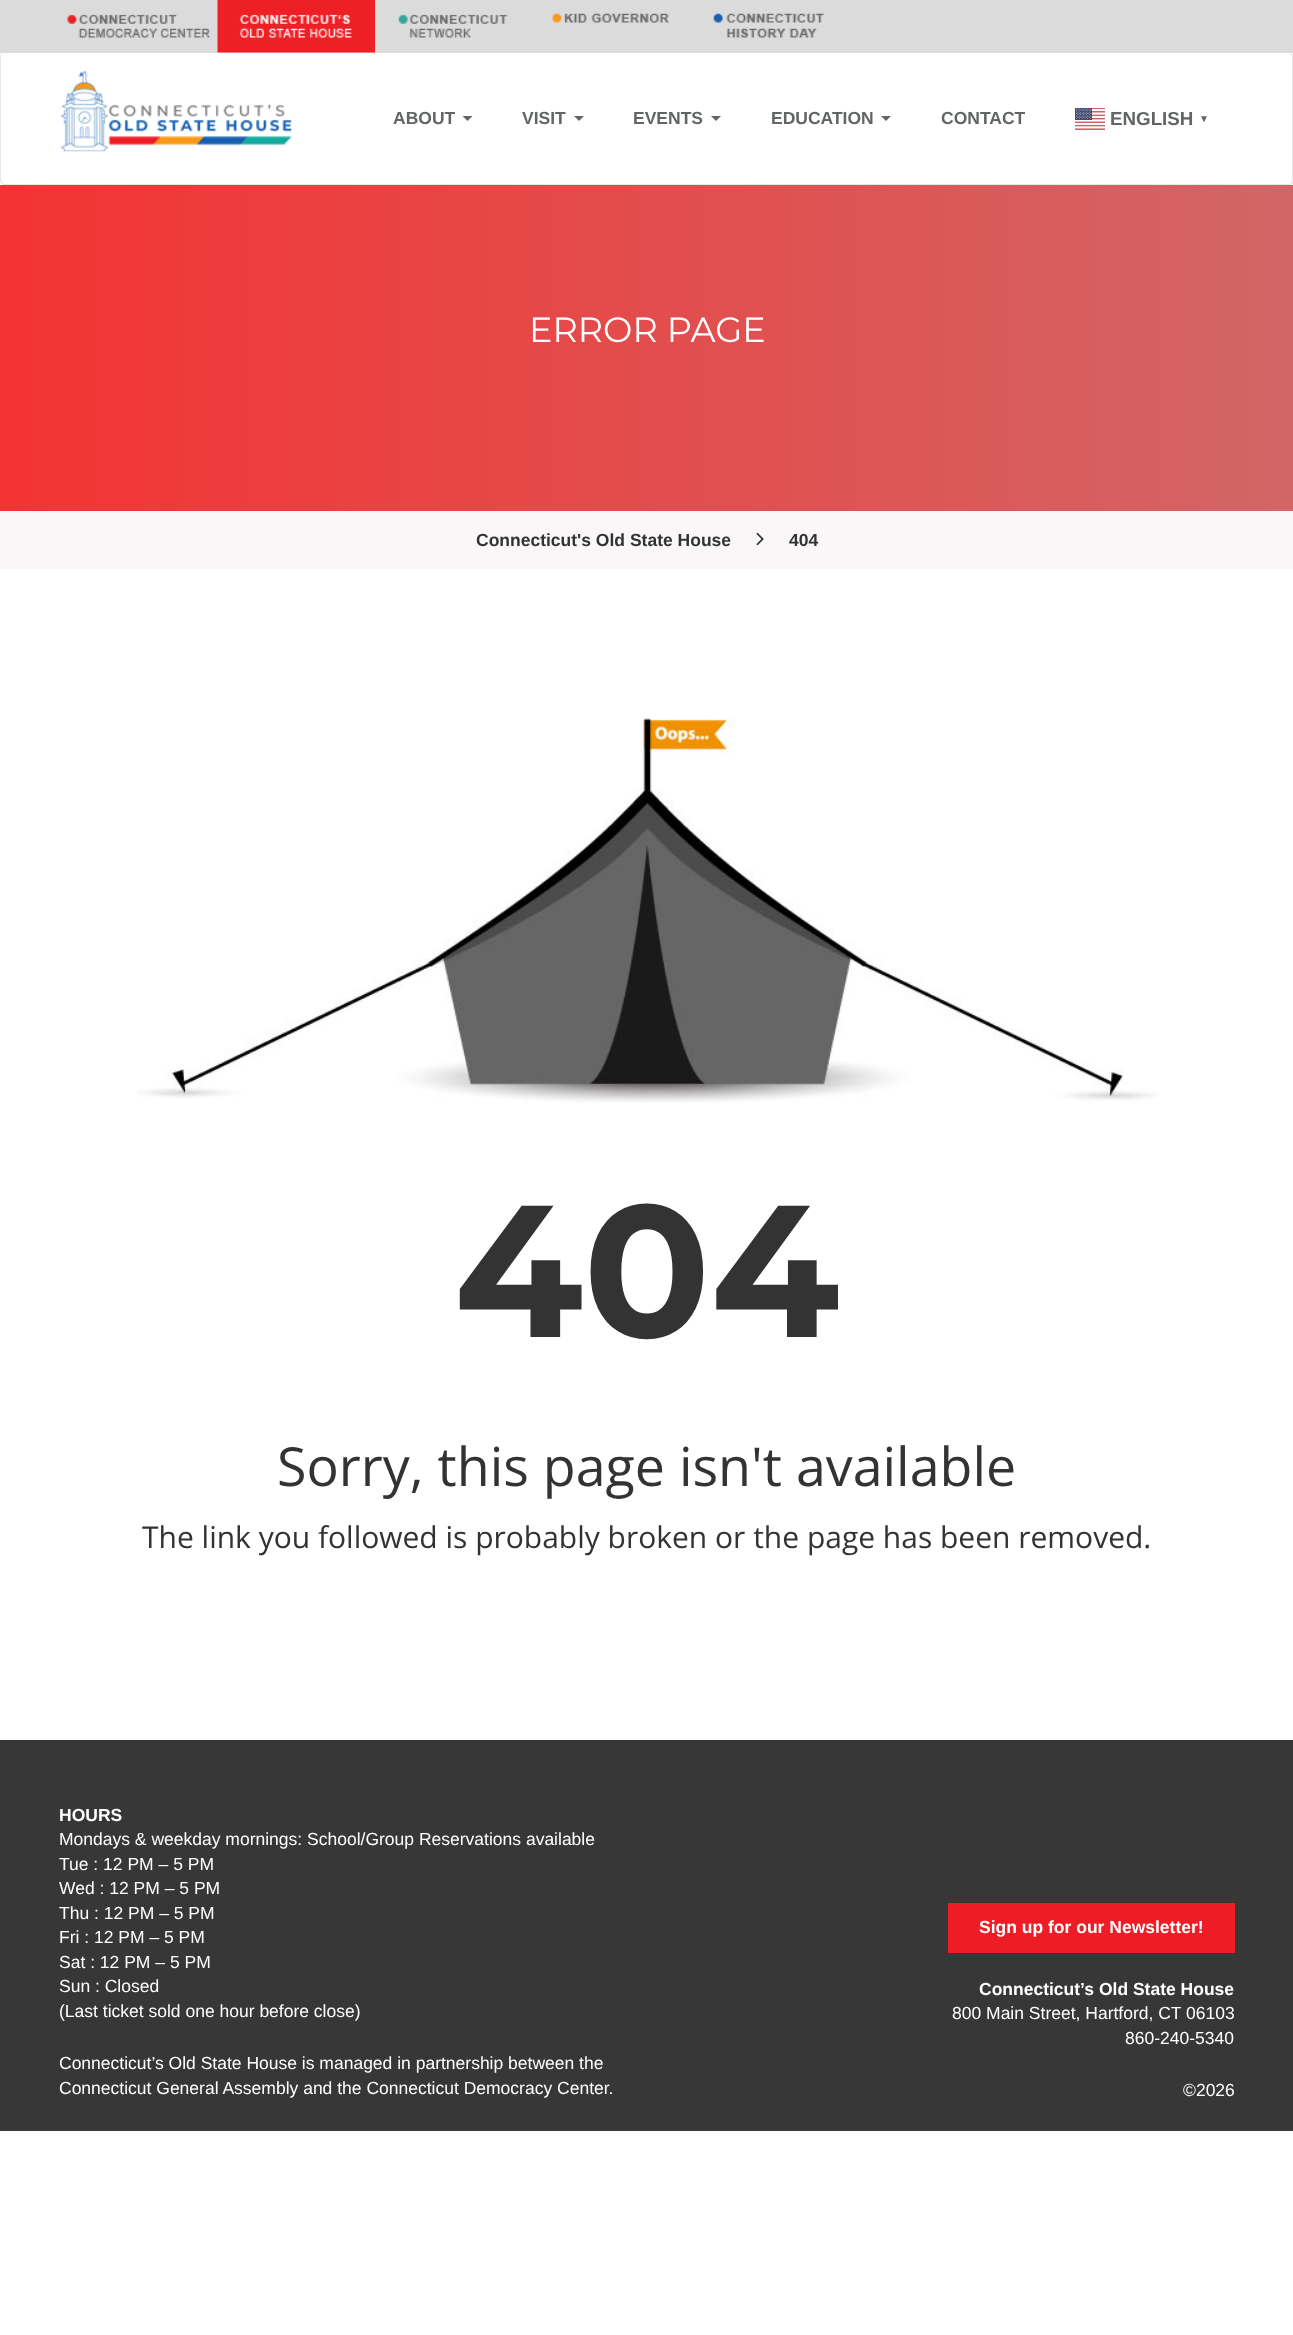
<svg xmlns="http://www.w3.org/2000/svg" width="1293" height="2335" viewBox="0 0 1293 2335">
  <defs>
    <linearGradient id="g1" gradientUnits="userSpaceOnUse" x1="0" y1="348" x2="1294" y2="348"><stop offset="0" stop-color="rgb(244,51,51)"/><stop offset="1" stop-color="rgb(210,102,102)"/></linearGradient>
  </defs>
  <rect width="100%" height="100%" fill="rgb(255,255,255)"/>
  <rect x="0" y="0" width="1293" height="53" fill="rgb(219,219,219)"/>
  <image x="67" y="14" width="144" height="24" href="pic1.png"/>
  <image x="217" y="0" width="158" height="53" href="pic2.png"/>
  <image x="398" y="14" width="110" height="24" href="pic3.png"/>
  <image x="552" y="13" width="117" height="10" href="pic4.png"/>
  <image x="713" y="13" width="111" height="25" href="pic5.png"/>
  <path d="M5 52H1289C1292 52 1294 55 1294 58V180C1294 183 1292 185 1289 185H5C2 185 0 183 0 180V58C0 55 2 52 5 52ZM5 52H1289C1291 52 1292 55 1292 58V180C1292 182 1291 184 1289 184H5C3 184 1 182 1 180V58C1 55 3 52 5 52Z" fill="rgb(231,231,231)" fill-rule="evenodd"/>
  <image x="61" y="71" width="231" height="81" href="pic6.png"/>
  <text x="393" y="124" font-family="Liberation Sans" font-size="17.5" font-weight="bold" fill="rgb(97,101,102)">ABOUT</text>
  <path d="M462.5 116H472.5L467.5 121Z" fill="rgb(97,101,102)"/>
  <text x="522" y="124" font-family="Liberation Sans" font-size="17.5" font-weight="bold" fill="rgb(97,101,102)">VISIT</text>
  <path d="M574 116H584L579 121Z" fill="rgb(97,101,102)"/>
  <text x="633" y="124" font-family="Liberation Sans" font-size="17.5" font-weight="bold" fill="rgb(97,101,102)">EVENTS</text>
  <path d="M711 116H721L716 121Z" fill="rgb(97,101,102)"/>
  <text x="771" y="124" font-family="Liberation Sans" font-size="17.5" font-weight="bold" fill="rgb(97,101,102)">EDUCATION</text>
  <path d="M881 116H891L886 121Z" fill="rgb(97,101,102)"/>
  <text x="941" y="124" font-family="Liberation Sans" font-size="17.5" font-weight="bold" fill="rgb(97,101,102)">CONTACT</text>
  <image x="1075" y="108" width="30" height="22" href="pic7.png"/>
  <text x="1110" y="125" font-family="Liberation Sans" font-size="18.75" font-weight="bold" fill="rgb(97,101,102)">ENGLISH</text>
  <text x="1199" y="122" font-family="Liberation Sans" font-size="10" font-weight="bold" fill="rgb(97,101,102)">▼</text>
  <rect x="0" y="185" width="1293" height="326" fill="url(#g1)"/>
  <text x="529" y="342" font-family="Montserrat" font-size="35" fill="rgb(255,255,255)">ERROR PAGE</text>
  <rect x="0" y="511" width="1293" height="58" fill="rgb(249,247,247)"/>
  <text x="476" y="546" font-family="Liberation Sans" font-size="17.5" font-weight="bold" fill="rgb(51,51,51)">Connecticut's Old State House</text>
  <image x="756" y="532" width="8" height="14" href="pic8.png"/>
  <text x="789" y="546" font-family="Liberation Sans" font-size="17.5" font-weight="bold" fill="rgb(51,51,51)">404</text>
  <image x="137" y="718" width="1022" height="385" href="pic9.png"/>
  <text x="454" y="1337" font-family="Montserrat" font-size="187.5" font-weight="bold" fill="rgb(51,51,51)">404</text>
  <text x="277" y="1486" font-family="Open Sans" font-size="53.75" fill="rgb(51,51,51)">Sorry, this page isn't available</text>
  <text x="142" y="1548" font-family="Open Sans" font-size="30" fill="rgb(51,51,51)">The link you followed is probably broken or the page has been removed.</text>
  <rect x="0" y="1740" width="1293" height="391" fill="rgb(55,55,55)"/>
  <text x="59" y="1821" font-family="Liberation Sans" font-size="17.5" font-weight="bold" fill="rgb(255,255,255)">HOURS</text>
  <g font-family="Liberation Sans" font-size="17.5" fill="rgb(255,255,255)">
    <text>
      <tspan x="59" y="1845">Mondays &amp; weekday mornings: School/Group Reservations available</tspan>
      <tspan x="59" y="1870">Tue : 12 PM – 5 PM</tspan>
      <tspan x="59" y="1894">Wed : 12 PM – 5 PM</tspan>
      <tspan x="59" y="1919">Thu : 12 PM – 5 PM</tspan>
      <tspan x="59" y="1943">Fri : 12 PM – 5 PM</tspan>
      <tspan x="59" y="1968">Sat : 12 PM – 5 PM</tspan>
      <tspan x="59" y="1992">Sun : Closed</tspan>
      <tspan x="59" y="2017">(Last ticket sold one hour before close)</tspan>
    </text>
    <text>
      <tspan x="59" y="2069">Connecticut’s Old State House is managed in partnership between the</tspan>
      <tspan x="59" y="2094">Connecticut General Assembly and the Connecticut Democracy Center.</tspan>
    </text>
  </g>
  <rect x="948" y="1903" width="287" height="50" fill="rgb(237,28,37)"/>
  <g font-family="Liberation Sans" font-size="17.5" font-weight="bold" fill="rgb(255,255,255)">
    <text x="979" y="1933">Sign up for our Newsletter!</text>
    <text x="979" y="1995">Connecticut’s Old State House</text>
  </g>
  <g font-family="Liberation Sans" font-size="17.5" fill="rgb(255,255,255)">
    <text x="952" y="2019">800 Main Street, Hartford, CT 06103</text>
    <text x="1125" y="2044">860-240-5340</text>
    <text x="1183" y="2096">©2026</text>
  </g>
</svg>
